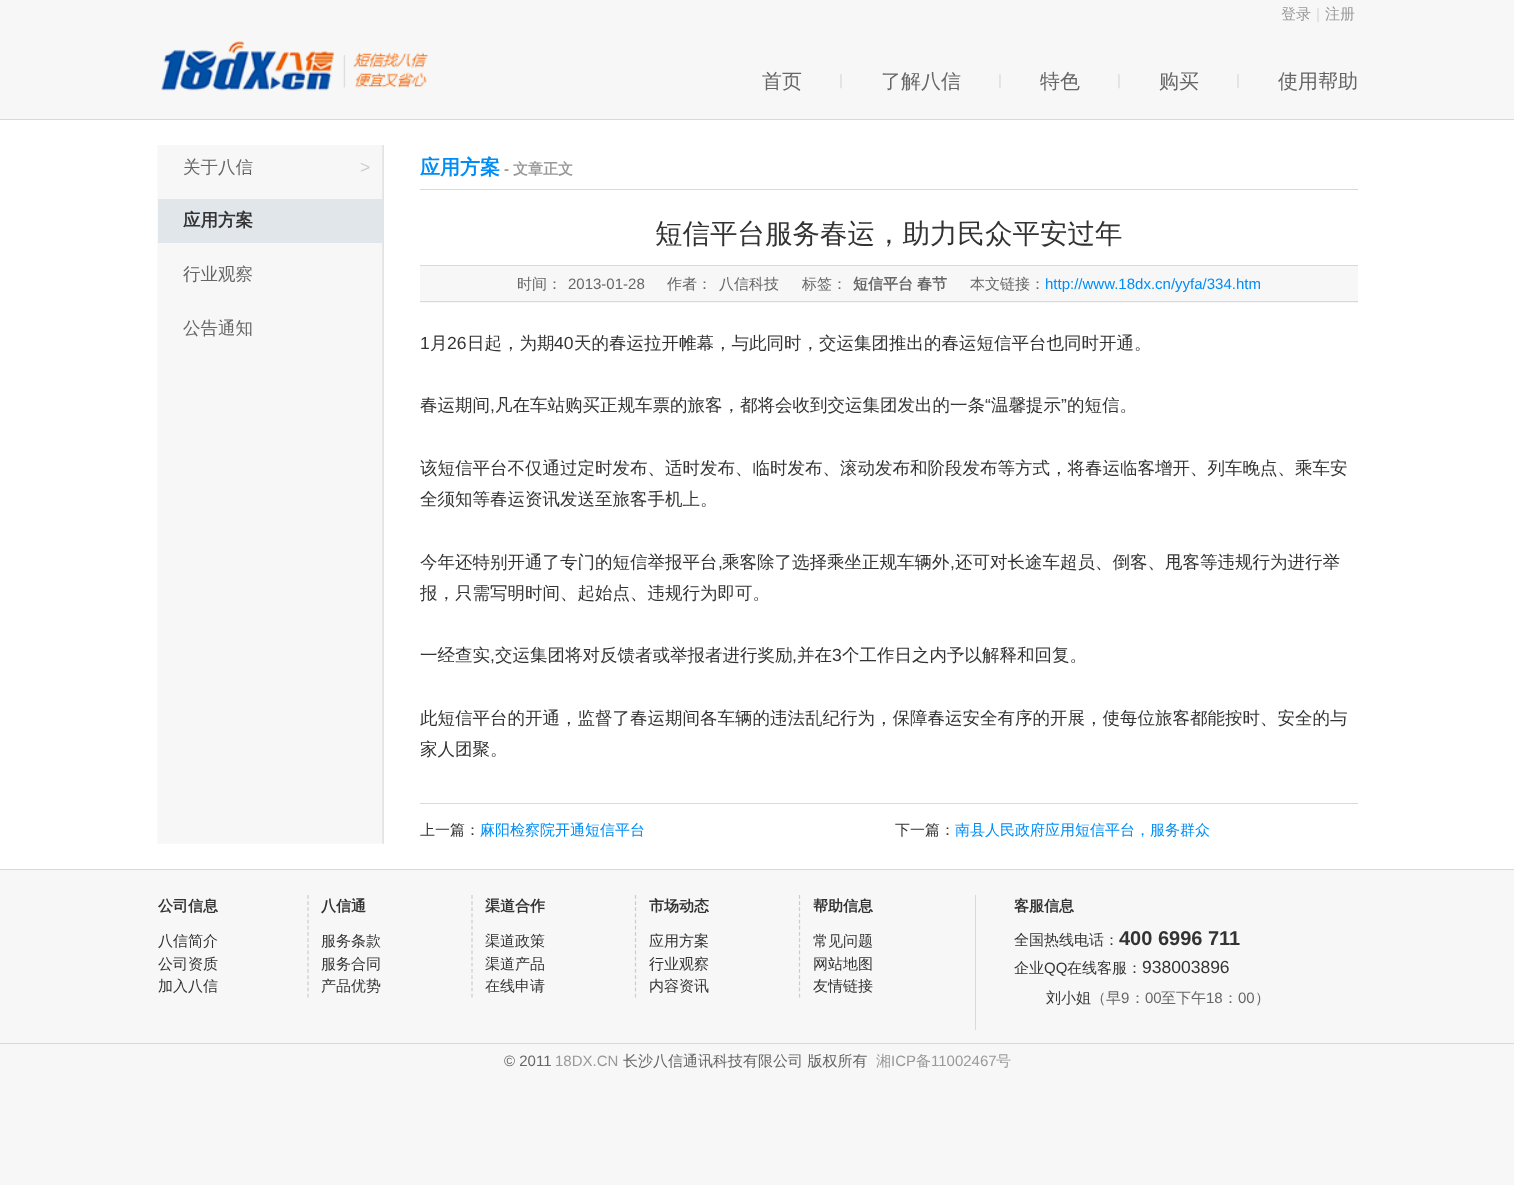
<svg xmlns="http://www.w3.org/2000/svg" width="1514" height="1185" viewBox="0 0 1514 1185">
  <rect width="100%" height="100%" fill="rgb(247,247,247)"/>
  <rect x="0" y="119" width="1514" height="1" fill="rgb(217,217,217)"/>
  <text x="1281" y="19" font-family="WenQuanYi Zen Hei" font-size="15" font-weight="500" fill="rgb(153,153,153)">登录</text>
  <text x="1316" y="19" font-family="Liberation Sans" font-size="15" fill="rgb(217,217,217)">|</text>
  <text x="1325" y="19" font-family="WenQuanYi Zen Hei" font-size="15" font-weight="500" fill="rgb(153,153,153)">注册</text>
  <image x="161" y="41" width="267" height="50" href="pic1.png"/>
  <text x="762" y="88" font-family="WenQuanYi Zen Hei" font-size="20" font-weight="500" fill="rgb(102,102,102)">首页</text>
  <text x="839" y="85" font-family="Liberation Sans" font-size="15" fill="rgb(217,217,217)">|</text>
  <text x="881" y="88" font-family="WenQuanYi Zen Hei" font-size="20" font-weight="500" fill="rgb(102,102,102)">了解八信</text>
  <text x="998" y="85" font-family="Liberation Sans" font-size="15" fill="rgb(217,217,217)">|</text>
  <text x="1040" y="88" font-family="WenQuanYi Zen Hei" font-size="20" font-weight="500" fill="rgb(102,102,102)">特色</text>
  <text x="1117" y="85" font-family="Liberation Sans" font-size="15" fill="rgb(217,217,217)">|</text>
  <text x="1159" y="88" font-family="WenQuanYi Zen Hei" font-size="20" font-weight="500" fill="rgb(102,102,102)">购买</text>
  <text x="1236" y="85" font-family="Liberation Sans" font-size="15" fill="rgb(217,217,217)">|</text>
  <text x="1278" y="88" font-family="WenQuanYi Zen Hei" font-size="20" font-weight="500" fill="rgb(102,102,102)">使用帮助</text>
  <rect x="0" y="120" width="1514" height="749" fill="rgb(255,255,255)"/>
  <image x="157" y="145" width="227" height="699" href="pic2.png"/>
  <text x="183" y="173" font-family="WenQuanYi Zen Hei" font-size="17.5" font-weight="500" fill="rgb(102,102,102)">关于八信</text>
  <text x="360" y="173" font-family="Liberation Sans" font-size="17.5" fill="rgb(204,204,204)">&gt;</text>
  <rect x="158" y="199" width="225" height="44" fill="rgb(225,230,235)"/>
  <text x="183" y="226" font-family="WenQuanYi Zen Hei" font-size="17.5" font-weight="bold" fill="rgb(51,51,51)">应用方案</text>
  <g font-family="WenQuanYi Zen Hei" font-size="17.5" font-weight="500" fill="rgb(102,102,102)">
    <text x="183" y="280">行业观察</text>
    <text x="183" y="334">公告通知</text>
  </g>
  <rect x="420" y="189" width="938" height="1" fill="rgb(217,217,217)"/>
  <text x="420" y="174" font-family="WenQuanYi Zen Hei" font-size="20" font-weight="bold" fill="rgb(0,141,246)">应用方案</text>
  <text x="504" y="174" font-family="Liberation Sans" font-size="15" font-weight="bold" fill="rgb(153,153,153)">-</text>
  <text x="513" y="174" font-family="WenQuanYi Zen Hei" font-size="15" font-weight="bold" fill="rgb(153,153,153)">文章正文</text>
  <text x="655" y="243" font-family="WenQuanYi Zen Hei" font-size="27.5" font-weight="500" fill="rgb(51,51,51)">短信平台服务春运，助力民众平安过年</text>
  <rect x="420" y="266" width="938" height="37" fill="rgb(247,247,247)"/>
  <rect x="420" y="265" width="938" height="1" fill="rgb(217,217,217)"/>
  <rect x="420" y="301" width="938" height="1" fill="rgb(217,217,217)"/>
  <text x="517" y="289" font-family="WenQuanYi Zen Hei" font-size="15" font-weight="500" fill="rgb(102,102,102)">时间：</text>
  <text x="568" y="289" font-family="Liberation Sans" font-size="15" fill="rgb(102,102,102)">2013-01-28</text>
  <g font-family="WenQuanYi Zen Hei" font-size="15" font-weight="500" fill="rgb(102,102,102)">
    <text x="667" y="289">作者：</text>
    <text x="719" y="289">八信科技</text>
    <text x="802" y="289">标签：</text>
  </g>
  <g font-family="WenQuanYi Zen Hei" font-size="15" font-weight="bold" fill="rgb(102,102,102)">
    <text x="853" y="289">短信平台</text>
    <text x="917" y="289">春节</text>
  </g>
  <text x="970" y="289" font-family="WenQuanYi Zen Hei" font-size="15" font-weight="500" fill="rgb(102,102,102)">本文链接：</text>
  <text x="1045" y="289" font-family="Liberation Sans" font-size="15" fill="rgb(0,141,246)">http://www.18dx.cn/yyfa/334.htm</text>
  <text x="420" y="349" font-family="Liberation Sans" font-size="17.5" fill="rgb(51,51,51)">1</text>
  <text x="430" y="349" font-family="WenQuanYi Zen Hei" font-size="17.5" font-weight="500" fill="rgb(51,51,51)">月</text>
  <text x="447" y="349" font-family="Liberation Sans" font-size="17.5" fill="rgb(51,51,51)">26</text>
  <text x="467" y="349" font-family="WenQuanYi Zen Hei" font-size="17.5" font-weight="500" fill="rgb(51,51,51)">日起，为期</text>
  <text x="554" y="349" font-family="Liberation Sans" font-size="17.5" fill="rgb(51,51,51)">40</text>
  <g font-family="WenQuanYi Zen Hei" font-size="17.5" font-weight="500" fill="rgb(51,51,51)">
    <text x="574" y="349">天的春运拉开帷幕，与此同时，交运集团推出的春运短信平台也同时开通。</text>
    <text x="420" y="411">春运期间</text>
    <text x="495" y="411">凡在车站购买正规车票的旅客，都将会收到交运集团发出的一条</text>
  </g>
  <text x="985" y="411" font-family="Liberation Sans" font-size="17.5" fill="rgb(51,51,51)">“</text>
  <text x="991" y="411" font-family="WenQuanYi Zen Hei" font-size="17.5" font-weight="500" fill="rgb(51,51,51)">温馨提示</text>
  <text x="1061" y="411" font-family="Liberation Sans" font-size="17.5" fill="rgb(51,51,51)">”</text>
  <text x="1067" y="411" font-family="WenQuanYi Zen Hei" font-size="17.5" font-weight="500" fill="rgb(51,51,51)">的短信。</text>
  <text x="490" y="411" font-family="Liberation Sans" font-size="17.5" fill="rgb(51,51,51)">,</text>
  <g font-family="WenQuanYi Zen Hei" font-size="17.5" font-weight="500" fill="rgb(51,51,51)">
    <text>
      <tspan x="420" y="474">该短信平台不仅通过定时发布、适时发布、临时发布、滚动发布和阶段发布等方式，将春运临客增开、列车晚点、乘车安</tspan>
      <tspan x="420" y="505">全须知等春运资讯发送至旅客手机上。</tspan>
    </text>
    <text x="420" y="568">今年还特别开通了专门的短信举报平台</text>
  </g>
  <text x="718" y="568" font-family="Liberation Sans" font-size="17.5" fill="rgb(51,51,51)">,</text>
  <text x="722" y="568" font-family="WenQuanYi Zen Hei" font-size="17.5" font-weight="500" fill="rgb(51,51,51)">乘客除了选择乘坐正规车辆外</text>
  <text x="950" y="568" font-family="Liberation Sans" font-size="17.5" fill="rgb(51,51,51)">,</text>
  <g font-family="WenQuanYi Zen Hei" font-size="17.5" font-weight="500" fill="rgb(51,51,51)">
    <text x="955" y="568">还可对长途车超员、倒客、甩客等违规行为进行举</text>
    <text x="420" y="599">报，只需写明时间、起始点、违规行为即可。</text>
    <text x="420" y="661">一经查实</text>
  </g>
  <text x="490" y="661" font-family="Liberation Sans" font-size="17.5" fill="rgb(51,51,51)">,</text>
  <text x="495" y="661" font-family="WenQuanYi Zen Hei" font-size="17.5" font-weight="500" fill="rgb(51,51,51)">交运集团将对反馈者或举报者进行奖励</text>
  <text x="792" y="661" font-family="Liberation Sans" font-size="17.5" fill="rgb(51,51,51)">,</text>
  <text x="797" y="661" font-family="WenQuanYi Zen Hei" font-size="17.5" font-weight="500" fill="rgb(51,51,51)">并在</text>
  <text x="832" y="661" font-family="Liberation Sans" font-size="17.5" fill="rgb(51,51,51)">3</text>
  <g font-family="WenQuanYi Zen Hei" font-size="17.5" font-weight="500" fill="rgb(51,51,51)">
    <text x="842" y="661">个工作日之内予以解释和回复。</text>
    <text>
      <tspan x="420" y="724">此短信平台的开通，监督了春运期间各车辆的违法乱纪行为，保障春运安全有序的开展，使每位旅客都能按时、安全的与</tspan>
      <tspan x="420" y="755">家人团聚。</tspan>
    </text>
  </g>
  <rect x="420" y="803" width="938" height="1" fill="rgb(217,217,217)"/>
  <text x="420" y="835" font-family="WenQuanYi Zen Hei" font-size="15" font-weight="500" fill="rgb(51,51,51)">上一篇：</text>
  <text x="480" y="835" font-family="WenQuanYi Zen Hei" font-size="15" font-weight="500" fill="rgb(0,141,246)">麻阳检察院开通短信平台</text>
  <text x="895" y="835" font-family="WenQuanYi Zen Hei" font-size="15" font-weight="500" fill="rgb(51,51,51)">下一篇：</text>
  <text x="955" y="835" font-family="WenQuanYi Zen Hei" font-size="15" font-weight="500" fill="rgb(0,141,246)">南县人民政府应用短信平台，服务群众</text>
  <rect x="0" y="869" width="1514" height="1" fill="rgb(217,217,217)"/>
  <path d="M308 895V997.5" fill="none" stroke="rgb(204,204,204)" stroke-width="1.2" stroke-dasharray="3.75 2.42"/>
  <text x="158" y="911" font-family="WenQuanYi Zen Hei" font-size="15" font-weight="bold" fill="rgb(51,51,51)">公司信息</text>
  <g font-family="WenQuanYi Zen Hei" font-size="15" font-weight="500" fill="rgb(51,51,51)">
    <text>
      <tspan x="158" y="946">八信简介</tspan>
      <tspan x="158" y="969">公司资质</tspan>
      <tspan x="158" y="991">加入八信</tspan>
    </text>
  </g>
  <path d="M472 895V997.5" fill="none" stroke="rgb(204,204,204)" stroke-width="1.2" stroke-dasharray="3.75 2.42"/>
  <text x="321" y="911" font-family="WenQuanYi Zen Hei" font-size="15" font-weight="bold" fill="rgb(51,51,51)">八信通</text>
  <g font-family="WenQuanYi Zen Hei" font-size="15" font-weight="500" fill="rgb(51,51,51)">
    <text>
      <tspan x="321" y="946">服务条款</tspan>
      <tspan x="321" y="969">服务合同</tspan>
      <tspan x="321" y="991">产品优势</tspan>
    </text>
  </g>
  <path d="M635.5 895V997.5" fill="none" stroke="rgb(204,204,204)" stroke-width="1.2" stroke-dasharray="3.75 2.42"/>
  <text x="485" y="911" font-family="WenQuanYi Zen Hei" font-size="15" font-weight="bold" fill="rgb(51,51,51)">渠道合作</text>
  <g font-family="WenQuanYi Zen Hei" font-size="15" font-weight="500" fill="rgb(51,51,51)">
    <text>
      <tspan x="485" y="946">渠道政策</tspan>
      <tspan x="485" y="969">渠道产品</tspan>
      <tspan x="485" y="991">在线申请</tspan>
    </text>
  </g>
  <path d="M799.5 895V997.5" fill="none" stroke="rgb(204,204,204)" stroke-width="1.2" stroke-dasharray="3.75 2.42"/>
  <text x="649" y="911" font-family="WenQuanYi Zen Hei" font-size="15" font-weight="bold" fill="rgb(51,51,51)">市场动态</text>
  <g font-family="WenQuanYi Zen Hei" font-size="15" font-weight="500" fill="rgb(51,51,51)">
    <text>
      <tspan x="649" y="946">应用方案</tspan>
      <tspan x="649" y="969">行业观察</tspan>
      <tspan x="649" y="991">内容资讯</tspan>
    </text>
  </g>
  <text x="813" y="911" font-family="WenQuanYi Zen Hei" font-size="15" font-weight="bold" fill="rgb(51,51,51)">帮助信息</text>
  <g font-family="WenQuanYi Zen Hei" font-size="15" font-weight="500" fill="rgb(51,51,51)">
    <text>
      <tspan x="813" y="946">常见问题</tspan>
      <tspan x="813" y="969">网站地图</tspan>
      <tspan x="813" y="991">友情链接</tspan>
    </text>
  </g>
  <rect x="975" y="895" width="1" height="135" fill="rgb(217,217,217)"/>
  <text x="1014" y="911" font-family="WenQuanYi Zen Hei" font-size="15" font-weight="bold" fill="rgb(51,51,51)">客服信息</text>
  <text x="1014" y="945" font-family="WenQuanYi Zen Hei" font-size="15" font-weight="500" fill="rgb(51,51,51)">全国热线电话：</text>
  <text x="1119" y="945" font-family="Liberation Sans" font-size="20" font-weight="bold" fill="rgb(51,51,51)">400 6996 711</text>
  <text x="1014" y="973" font-family="WenQuanYi Zen Hei" font-size="15" font-weight="500" fill="rgb(51,51,51)">企业</text>
  <text x="1044" y="973" font-family="Liberation Sans" font-size="15" fill="rgb(51,51,51)">QQ</text>
  <text x="1067" y="973" font-family="WenQuanYi Zen Hei" font-size="15" font-weight="500" fill="rgb(51,51,51)">在线客服：</text>
  <text x="1142" y="973" font-family="Liberation Sans" font-size="17.5" fill="rgb(51,51,51)">938003896</text>
  <text x="1046" y="1003" font-family="WenQuanYi Zen Hei" font-size="15" font-weight="500" fill="rgb(51,51,51)">刘小姐</text>
  <text x="1091" y="1003" font-family="WenQuanYi Zen Hei" font-size="15" font-weight="500" fill="rgb(102,102,102)">（早</text>
  <text x="1121" y="1003" font-family="Liberation Sans" font-size="15" fill="rgb(102,102,102)">9</text>
  <text x="1130" y="1003" font-family="WenQuanYi Zen Hei" font-size="15" font-weight="500" fill="rgb(102,102,102)">：</text>
  <text x="1145" y="1003" font-family="Liberation Sans" font-size="15" fill="rgb(102,102,102)">00</text>
  <text x="1161" y="1003" font-family="WenQuanYi Zen Hei" font-size="15" font-weight="500" fill="rgb(102,102,102)">至下午</text>
  <text x="1206" y="1003" font-family="Liberation Sans" font-size="15" fill="rgb(102,102,102)">18</text>
  <text x="1223" y="1003" font-family="WenQuanYi Zen Hei" font-size="15" font-weight="500" fill="rgb(102,102,102)">：</text>
  <text x="1238" y="1003" font-family="Liberation Sans" font-size="15" fill="rgb(102,102,102)">00</text>
  <text x="1255" y="1003" font-family="WenQuanYi Zen Hei" font-size="15" font-weight="500" fill="rgb(102,102,102)">）</text>
  <rect x="0" y="1043" width="1514" height="1" fill="rgb(217,217,217)"/>
  <text x="504" y="1066" font-family="Liberation Sans" font-size="15" fill="rgb(102,102,102)">© 2011</text>
  <text x="555" y="1066" font-family="Liberation Sans" font-size="15" fill="rgb(153,153,153)">18DX.CN</text>
  <text x="623" y="1066" font-family="WenQuanYi Zen Hei" font-size="15" font-weight="500" fill="rgb(102,102,102)">长沙八信通讯科技有限公司 版权所有</text>
  <text x="876" y="1066" font-family="WenQuanYi Zen Hei" font-size="15" font-weight="500" fill="rgb(153,153,153)">湘</text>
  <text x="891" y="1066" font-family="Liberation Sans" font-size="15" fill="rgb(153,153,153)">ICP</text>
  <text x="916" y="1066" font-family="WenQuanYi Zen Hei" font-size="15" font-weight="500" fill="rgb(153,153,153)">备</text>
  <text x="931" y="1066" font-family="Liberation Sans" font-size="15" fill="rgb(153,153,153)">11002467</text>
  <text x="996" y="1066" font-family="WenQuanYi Zen Hei" font-size="15" font-weight="500" fill="rgb(153,153,153)">号</text>
</svg>
